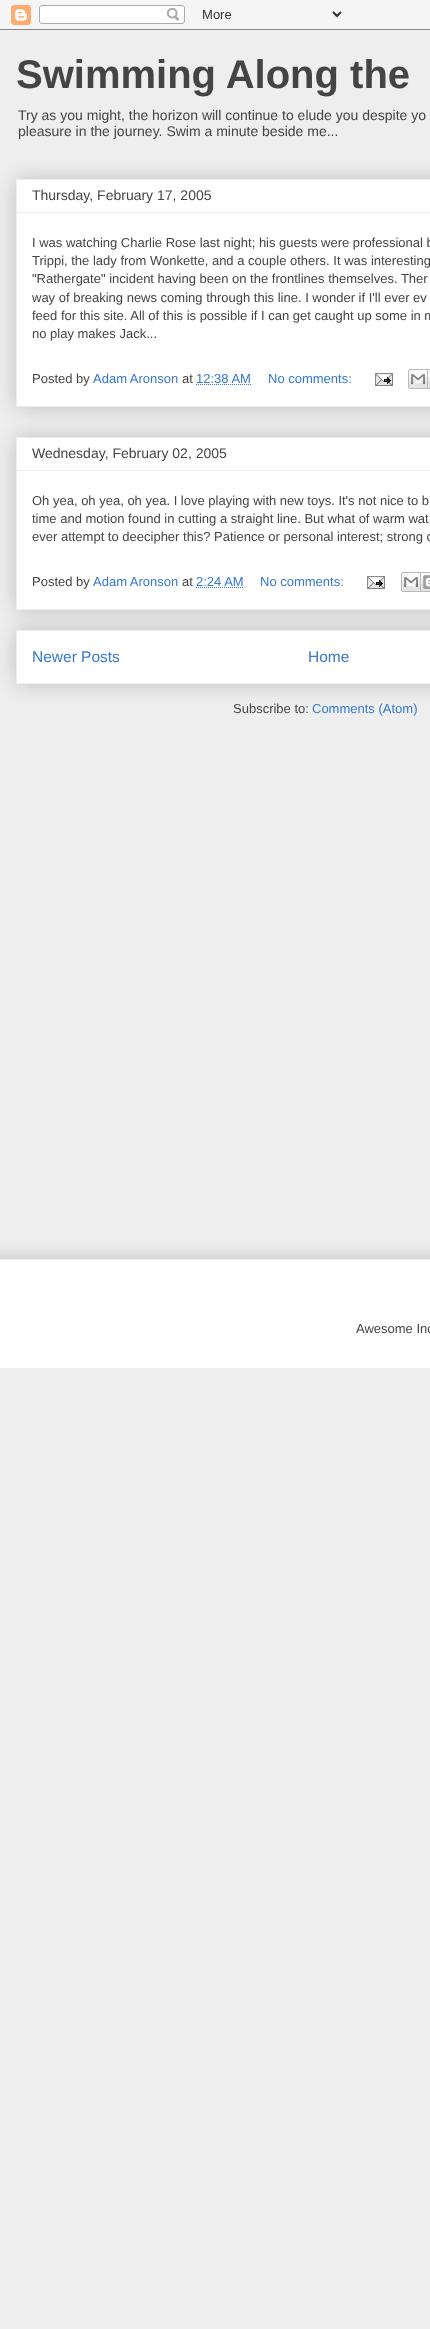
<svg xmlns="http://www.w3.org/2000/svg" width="430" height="2329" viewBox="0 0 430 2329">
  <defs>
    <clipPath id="clip1"><rect x="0" y="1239" width="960" height="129"/></clipPath>
  </defs>
  <rect width="100%" height="100%" fill="rgb(238,238,238)"/>
  <image x="0" y="0" width="430" height="30" href="pic1.png"/>
  <text x="16" y="88" font-family="Liberation Sans" font-size="40" font-weight="bold" fill="rgb(68,68,68)">Swimming Along the</text>
  <g font-family="Liberation Sans" font-size="14" fill="rgb(68,68,68)">
    <text>
      <tspan x="18" y="120">Try as you might, the horizon will continue to elude you despite yo</tspan>
      <tspan x="18" y="136">pleasure in the journey. Swim a minute beside me...</tspan>
    </text>
  </g>
  <rect x="16" y="179" width="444" height="228" fill="rgba(0,0,0,0.2)" filter="blur(10px)"/>
  <rect x="16.5" y="179.5" width="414" height="227" fill="rgb(255,255,255)" stroke="rgb(238,238,238)"/>
  <text x="32" y="200" font-family="Liberation Sans" font-size="14" fill="rgb(68,68,68)">Thursday, February 17, 2005</text>
  <rect x="17" y="212" width="413" height="1" fill="rgb(238,238,238)"/>
  <g font-family="Liberation Sans" font-size="13" fill="rgb(68,68,68)">
    <text>
      <tspan x="32" y="247">I was watching Charlie Rose last night; his guests were professional b</tspan>
      <tspan x="32" y="265">Trippi, the lady from Wonkette, and a couple others. It was interesting</tspan>
      <tspan x="32" y="283">"Rathergate" incident having been on the frontlines themselves. Ther</tspan>
      <tspan x="32" y="302">way of breaking news coming through this line. I wonder if I'll ever ev</tspan>
      <tspan x="32" y="320">feed for this site. All of this is possible if I can get caught up some in m</tspan>
      <tspan x="32" y="338">no play makes Jack...</tspan>
    </text>
    <text x="32" y="383">Posted by</text>
  </g>
  <text x="93" y="383" font-family="Liberation Sans" font-size="13" fill="rgb(55,120,205)">Adam Aronson</text>
  <text x="182" y="383" font-family="Liberation Sans" font-size="13" fill="rgb(68,68,68)">at</text>
  <text x="196" y="383" font-family="Liberation Sans" font-size="13" fill="rgb(55,120,205)">12:38 AM</text>
  <path d="M196 384.5H251" fill="none" stroke="rgb(55,120,205)" stroke-dasharray="1 1"/>
  <text x="268" y="383" font-family="Liberation Sans" font-size="13" fill="rgb(55,120,205)">No comments:</text>
  <image x="375" y="373" width="18" height="13" href="pic2.png"/>
  <image x="408" y="369" width="20" height="20" href="pic3.png"/>
  <image x="428" y="369" width="2" height="20" href="pic4.png"/>
  <rect x="16" y="630" width="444" height="54" fill="rgba(0,0,0,0.2)" filter="blur(10px)"/>
  <rect x="16.5" y="630.5" width="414" height="53" fill="rgb(255,255,255)" stroke="rgb(238,238,238)"/>
  <rect x="16" y="437" width="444" height="173" fill="rgba(0,0,0,0.2)" filter="blur(10px)"/>
  <rect x="16.5" y="437.5" width="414" height="172" fill="rgb(255,255,255)" stroke="rgb(238,238,238)"/>
  <text x="32" y="458" font-family="Liberation Sans" font-size="14" fill="rgb(68,68,68)">Wednesday, February 02, 2005</text>
  <rect x="17" y="470" width="413" height="1" fill="rgb(238,238,238)"/>
  <g font-family="Liberation Sans" font-size="13" fill="rgb(68,68,68)">
    <text>
      <tspan x="32" y="505">Oh yea, oh yea, oh yea. I love playing with new toys. It's not nice to b</tspan>
      <tspan x="32" y="523">time and motion found in cutting a straight line. But what of warm wat</tspan>
      <tspan x="32" y="541">ever attempt to deecipher this? Patience or personal interest; strong c</tspan>
    </text>
    <text x="32" y="586">Posted by</text>
  </g>
  <text x="93" y="586" font-family="Liberation Sans" font-size="13" fill="rgb(55,120,205)">Adam Aronson</text>
  <text x="182" y="586" font-family="Liberation Sans" font-size="13" fill="rgb(68,68,68)">at</text>
  <text x="196" y="586" font-family="Liberation Sans" font-size="13" fill="rgb(55,120,205)">2:24 AM</text>
  <path d="M196 587.5H244" fill="none" stroke="rgb(55,120,205)" stroke-dasharray="1 1"/>
  <text x="260" y="586" font-family="Liberation Sans" font-size="13" fill="rgb(55,120,205)">No comments:</text>
  <image x="367" y="576" width="18" height="13" href="pic2.png"/>
  <image x="401" y="572" width="20" height="20" href="pic3.png"/>
  <image x="421" y="572" width="9" height="20" href="pic5.png"/>
  <g font-family="Liberation Sans" font-size="15.5" fill="rgb(55,120,205)">
    <text x="32" y="662">Newer Posts</text>
    <text x="308" y="662">Home</text>
  </g>
  <text x="233" y="713" font-family="Liberation Sans" font-size="13" fill="rgb(68,68,68)">Subscribe to:</text>
  <text x="312" y="713" font-family="Liberation Sans" font-size="13" fill="rgb(55,120,205)">Comments (Atom)</text>
  <g clip-path="url(#clip1)">
    <rect x="-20" y="1259" width="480" height="109" fill="rgba(0,0,0,0.2)" filter="blur(10px)"/>
  </g>
  <rect x="0" y="1260" width="430" height="108" fill="rgb(255,255,255)"/>
  <rect x="0" y="1259" width="430" height="1" fill="rgb(238,238,238)"/>
  <text x="356" y="1333" font-family="Liberation Sans" font-size="13" fill="rgb(68,68,68)">Awesome Inc</text>
</svg>
